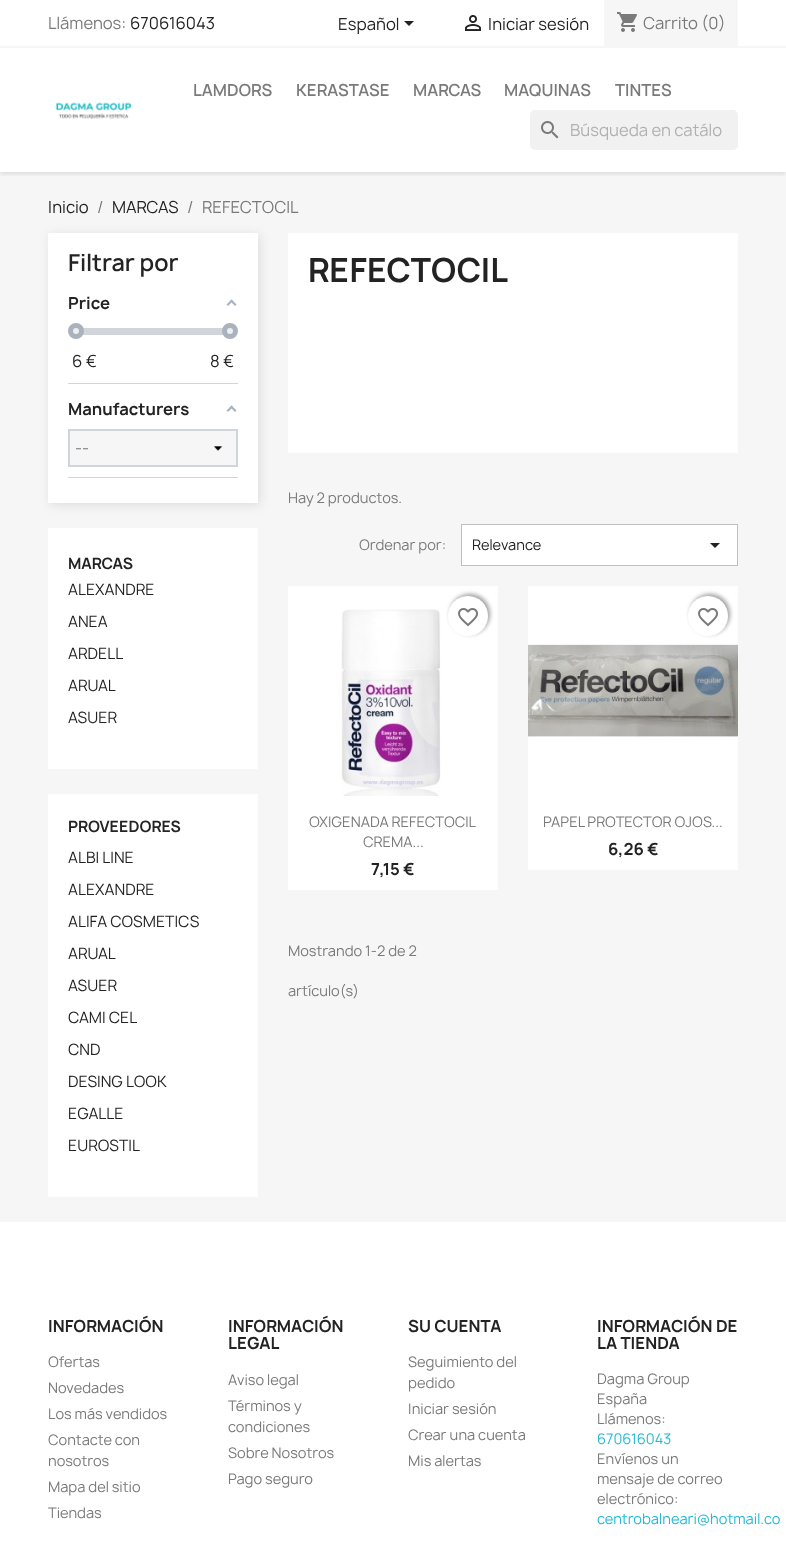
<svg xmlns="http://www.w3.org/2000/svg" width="786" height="1548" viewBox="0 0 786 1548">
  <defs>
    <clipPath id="clip1"><rect x="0" y="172" width="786" height="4"/></clipPath>
  </defs>
  <rect width="100%" height="100%" fill="rgb(255,255,255)"/>
  <rect x="0" y="172" width="786" height="1050" fill="rgb(246,246,246)"/>
  <g clip-path="url(#clip1)">
    <rect x="0" y="0" width="786" height="174" fill="rgba(0,0,0,0.11)" filter="blur(2.5px)"/>
  </g>
  <rect x="0" y="46" width="786" height="2" fill="rgb(246,246,246)"/>
  <text x="48" y="29" font-family="Manrope" font-size="16" fill="rgb(122,122,122)">Llámenos:</text>
  <g font-family="Manrope" font-size="16" fill="rgb(35,35,35)">
    <text x="130" y="29">670616043</text>
    <text x="338" y="30">Español</text>
  </g>
  <path d="M404 21H414L409 26Z" fill="rgb(35,35,35)"/>
  <image x="465" y="15" width="16" height="16" href="pic1.png"/>
  <text x="488" y="30" font-family="Manrope" font-size="16" fill="rgb(35,35,35)">Iniciar sesión</text>
  <rect x="604" y="0" width="134" height="46" fill="rgb(246,246,246)"/>
  <image x="617" y="12" width="20" height="20" href="pic2.png"/>
  <text x="643" y="29" font-family="Manrope" font-size="16" fill="rgb(122,122,122)">Carrito (0)</text>
  <image x="55" y="102" width="77" height="17" href="pic3.png"/>
  <g font-family="Manrope" font-size="16" font-weight="600" fill="rgb(122,122,122)">
    <text x="193" y="96">LAMDORS</text>
    <text x="296" y="96">KERASTASE</text>
    <text x="413" y="96">MARCAS</text>
    <text x="504" y="96">MAQUINAS</text>
    <text x="615" y="96">TINTES</text>
  </g>
  <rect x="530" y="110" width="208" height="40" rx="5" fill="rgb(241,241,241)"/>
  <image x="541" y="121" width="18" height="18" href="pic4.png"/>
  <text x="570" y="136" font-family="Manrope" font-size="16" fill="rgb(177,177,177)">Búsqueda en catálo</text>
  <text x="48" y="213" font-family="Manrope" font-size="16" fill="rgb(35,35,35)">Inicio</text>
  <text x="97" y="213" font-family="Manrope" font-size="16" fill="rgb(122,122,122)">/</text>
  <text x="112" y="213" font-family="Manrope" font-size="16" fill="rgb(35,35,35)">MARCAS</text>
  <g font-family="Manrope" font-size="16" fill="rgb(122,122,122)">
    <text x="187" y="213">/</text>
    <text x="202" y="213">REFECTOCIL</text>
  </g>
  <rect x="50" y="235" width="210" height="270" fill="rgba(0,0,0,0.1)" filter="blur(5.5px)"/>
  <rect x="48" y="233" width="210" height="270" fill="rgb(255,255,255)"/>
  <text x="68" y="271" font-family="Manrope" font-size="22.5" font-weight="600" fill="rgb(35,35,35)">Filtrar por</text>
  <rect x="68" y="383" width="170" height="1" fill="rgb(208,213,219)"/>
  <text x="68" y="309" font-family="Manrope" font-size="16" font-weight="bold" fill="rgb(35,35,35)">Price</text>
  <path d="M231.5 299.5L236.5 304.5L235 306L230 301Z" fill="rgb(170,178,189)"/>
  <path d="M231.5 299.5L233 301L228 306L226.5 304.5Z" fill="rgb(170,178,189)"/>
  <rect x="76" y="328" width="154" height="7" fill="rgb(208,213,219)"/>
  <circle cx="76" cy="331" r="5.5" fill="rgb(236,239,240)" stroke="rgb(170,178,189)" stroke-width="5"/>
  <circle cx="230" cy="331" r="5.5" fill="rgb(236,239,240)" stroke="rgb(170,178,189)" stroke-width="5"/>
  <g font-family="Manrope" font-size="16" fill="rgb(35,35,35)">
    <text x="72" y="367">6 €</text>
    <text x="210" y="367">8 €</text>
  </g>
  <rect x="68" y="477" width="170" height="1" fill="rgb(208,213,219)"/>
  <text x="68" y="415" font-family="Manrope" font-size="16" font-weight="bold" fill="rgb(35,35,35)">Manufacturers</text>
  <path d="M231.5 405.5L236.5 410.5L235 412L230 407Z" fill="rgb(170,178,189)"/>
  <path d="M231.5 405.5L233 407L228 412L226.5 410.5Z" fill="rgb(170,178,189)"/>
  <rect x="70" y="431" width="166" height="34" fill="rgb(246,246,246)"/>
  <image x="214" y="446" width="9" height="5" href="pic5.png"/>
  <rect x="69" y="430" width="168" height="36" fill="none" stroke="rgb(208,213,219)" stroke-width="2"/>
  <text x="75" y="454" font-family="Manrope" font-size="16" fill="rgb(122,122,122)">--</text>
  <rect x="48" y="528" width="210" height="241" fill="rgb(255,255,255)"/>
  <text x="68" y="569" font-family="Manrope" font-size="15" font-weight="bold" fill="rgb(35,35,35)">MARCAS</text>
  <g font-family="Manrope" font-size="15" fill="rgb(35,35,35)">
    <text x="68" y="595">ALEXANDRE</text>
    <text x="68" y="627">ANEA</text>
    <text x="68" y="659">ARDELL</text>
    <text x="68" y="691">ARUAL</text>
    <text x="68" y="723">ASUER</text>
  </g>
  <rect x="48" y="794" width="210" height="403" fill="rgb(255,255,255)"/>
  <text x="68" y="832" font-family="Manrope" font-size="15" font-weight="bold" fill="rgb(35,35,35)">PROVEEDORES</text>
  <g font-family="Manrope" font-size="15" fill="rgb(35,35,35)">
    <text x="68" y="863">ALBI LINE</text>
    <text x="68" y="895">ALEXANDRE</text>
    <text x="68" y="927">ALIFA COSMETICS</text>
    <text x="68" y="959">ARUAL</text>
    <text x="68" y="991">ASUER</text>
    <text x="68" y="1023">CAMI CEL</text>
    <text x="68" y="1055">CND</text>
    <text x="68" y="1087">DESING LOOK</text>
    <text x="68" y="1119">EGALLE</text>
    <text x="68" y="1151">EUROSTIL</text>
  </g>
  <rect x="288" y="233" width="450" height="220" fill="rgb(255,255,255)"/>
  <text x="308" y="282" font-family="Manrope" font-size="32" font-weight="bold" fill="rgb(35,35,35)">REFECTOCIL</text>
  <g font-family="Manrope" font-size="14" fill="rgb(122,122,122)">
    <text x="288" y="503">Hay 2 productos.</text>
    <text x="359" y="550">Ordenar por:</text>
  </g>
  <rect x="461.5" y="524.5" width="276" height="41" fill="rgb(255,255,255)" stroke="rgb(191,191,191)"/>
  <text x="472" y="550" font-family="Manrope" font-size="14" fill="rgb(35,35,35)">Relevance</text>
  <path d="M710 543H720L715 548Z" fill="rgb(35,35,35)"/>
  <rect x="288" y="586" width="210" height="304" fill="rgb(255,255,255)"/>
  <rect x="450" y="594" width="40" height="40" rx="20" fill="rgba(0,0,0,0.2)" filter="blur(2px)"/>
  <image x="341" y="609" width="100" height="187" href="pic6.png"/>
  <rect x="450" y="594" width="40" height="40" rx="20" fill="rgba(0,0,0,0.2)" filter="blur(2px)"/>
  <circle cx="468" cy="616" r="20" fill="rgb(255,255,255)"/>
  <image x="458" y="608" width="20" height="19" href="pic7.png"/>
  <g font-family="Manrope" font-size="14" fill="rgb(122,122,122)">
    <text x="309" y="827">OXIGENADA REFECTOCIL</text>
    <text x="363" y="847">CREMA...</text>
  </g>
  <text x="371" y="875" font-family="Manrope" font-size="16" font-weight="bold" fill="rgb(35,35,35)">7,15 €</text>
  <rect x="528" y="586" width="210" height="284" fill="rgb(255,255,255)"/>
  <rect x="690" y="594" width="40" height="40" rx="20" fill="rgba(0,0,0,0.2)" filter="blur(2px)"/>
  <rect x="690" y="594" width="40" height="40" rx="20" fill="rgba(0,0,0,0.2)" filter="blur(2px)"/>
  <circle cx="708" cy="616" r="20" fill="rgb(255,255,255)"/>
  <image x="698" y="608" width="20" height="19" href="pic7.png"/>
  <image x="528" y="644" width="210" height="93" href="pic8.png"/>
  <text x="543" y="827" font-family="Manrope" font-size="14" fill="rgb(122,122,122)">PAPEL PROTECTOR OJOS...</text>
  <text x="608" y="855" font-family="Manrope" font-size="16" font-weight="bold" fill="rgb(35,35,35)">6,26 €</text>
  <g font-family="Manrope" font-size="14" fill="rgb(122,122,122)">
    <text x="288" y="956">Mostrando 1-2 de 2</text>
    <text x="288" y="996">artículo(s)</text>
  </g>
  <text x="48" y="1332" font-family="Manrope" font-size="16" font-weight="bold" fill="rgb(35,35,35)">INFORMACIÓN</text>
  <g font-family="Manrope" font-size="14" fill="rgb(122,122,122)">
    <text>
      <tspan x="48" y="1367">Ofertas</tspan>
      <tspan x="48" y="1393">Novedades</tspan>
      <tspan x="48" y="1419">Los más vendidos</tspan>
      <tspan x="48" y="1445">Contacte con</tspan>
      <tspan x="48" y="1466">nosotros</tspan>
      <tspan x="48" y="1492">Mapa del sitio</tspan>
      <tspan x="48" y="1518">Tiendas</tspan>
    </text>
  </g>
  <g font-family="Manrope" font-size="16" font-weight="bold" fill="rgb(35,35,35)">
    <text>
      <tspan x="228" y="1332">INFORMACIÓN</tspan>
      <tspan x="228" y="1349">LEGAL</tspan>
    </text>
  </g>
  <g font-family="Manrope" font-size="14" fill="rgb(122,122,122)">
    <text>
      <tspan x="228" y="1385">Aviso legal</tspan>
      <tspan x="228" y="1411">Términos y</tspan>
      <tspan x="228" y="1432">condiciones</tspan>
      <tspan x="228" y="1458">Sobre Nosotros</tspan>
      <tspan x="228" y="1484">Pago seguro</tspan>
    </text>
  </g>
  <text x="408" y="1332" font-family="Manrope" font-size="16" font-weight="bold" fill="rgb(35,35,35)">SU CUENTA</text>
  <g font-family="Manrope" font-size="14" fill="rgb(122,122,122)">
    <text>
      <tspan x="408" y="1367">Seguimiento del</tspan>
      <tspan x="408" y="1388">pedido</tspan>
      <tspan x="408" y="1414">Iniciar sesión</tspan>
      <tspan x="408" y="1440">Crear una cuenta</tspan>
      <tspan x="408" y="1466">Mis alertas</tspan>
    </text>
  </g>
  <g font-family="Manrope" font-size="16" font-weight="bold" fill="rgb(35,35,35)">
    <text>
      <tspan x="597" y="1332">INFORMACIÓN DE</tspan>
      <tspan x="597" y="1349">LA TIENDA</tspan>
    </text>
  </g>
  <g font-family="Manrope" font-size="14" fill="rgb(122,122,122)">
    <text>
      <tspan x="597" y="1384">Dagma Group</tspan>
      <tspan x="597" y="1404">España</tspan>
      <tspan x="597" y="1424">Llámenos:</tspan>
    </text>
  </g>
  <text x="597" y="1444" font-family="Manrope" font-size="14" fill="rgb(36,185,215)">670616043</text>
  <g font-family="Manrope" font-size="14" fill="rgb(122,122,122)">
    <text>
      <tspan x="597" y="1464">Envíenos un</tspan>
      <tspan x="597" y="1484">mensaje de correo</tspan>
      <tspan x="597" y="1504">electrónico:</tspan>
    </text>
  </g>
  <text x="597" y="1524" font-family="Manrope" font-size="14" fill="rgb(36,185,215)">centrobalneari@hotmail.co</text>
</svg>
